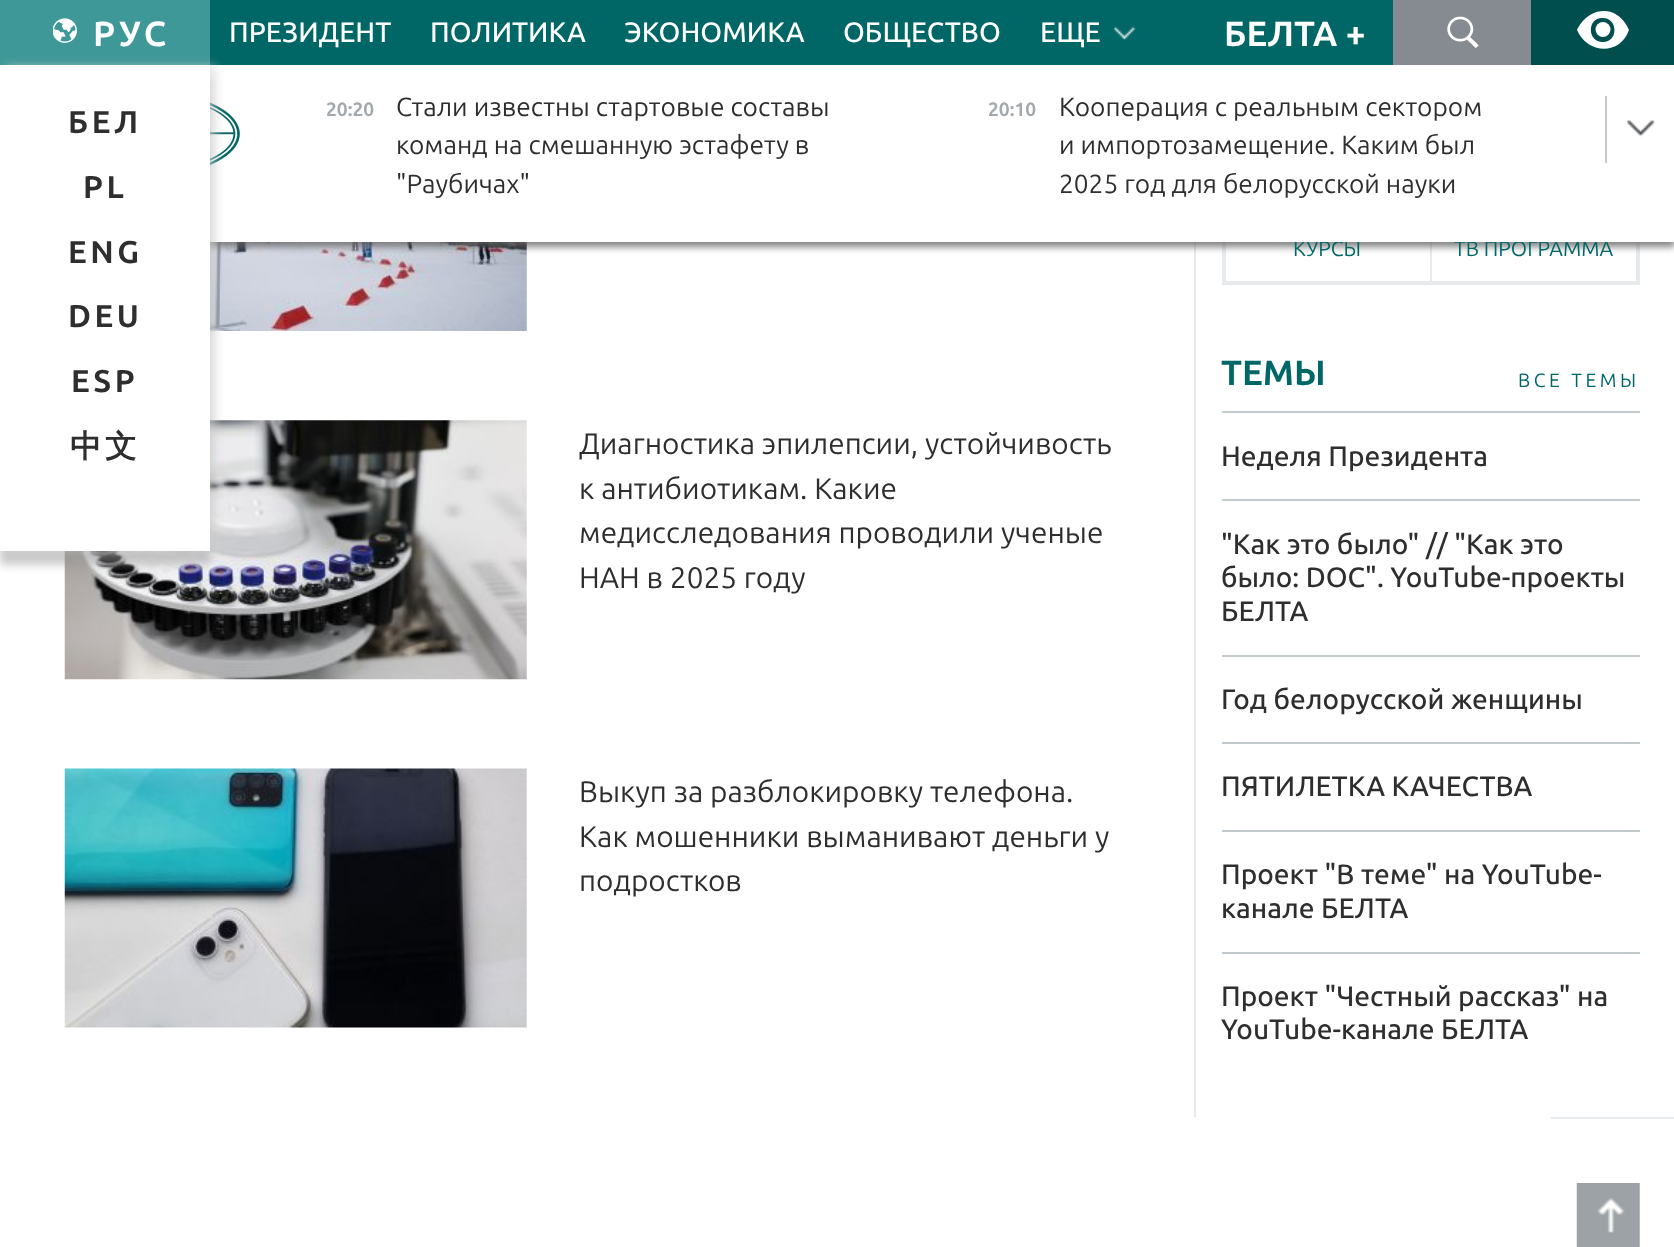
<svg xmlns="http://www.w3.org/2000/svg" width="1674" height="1247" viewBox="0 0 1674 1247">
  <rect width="100%" height="100%" fill="rgb(255,255,255)"/>
  <rect x="1194" y="242" width="2" height="875" fill="rgb(230,234,237)"/>
  <image x="210" y="242" width="317" height="89" href="pic6.png"/>
  <rect x="1224" y="-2" width="414" height="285" fill="none" stroke="rgb(230,234,237)" stroke-width="4"/>
  <rect x="1430" y="242" width="2" height="40" fill="rgb(230,234,237)"/>
  <rect x="0" y="70" width="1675" height="177" fill="rgba(100,100,100,0.8)" filter="blur(3.5px)"/>
  <rect x="210" y="0" width="1183" height="65" fill="rgb(0,102,102)"/>
  <rect x="0" y="0" width="210" height="65" fill="rgb(63,152,152)"/>
  <image x="53" y="18" width="24" height="25" href="pic1.png"/>
  <text x="93" y="46" font-family="Ubuntu" font-size="35" font-weight="bold" letter-spacing="3.5" fill="rgb(255,255,255)">РУС</text>
  <g font-family="Ubuntu" font-size="21" fill="rgb(0,102,102)">
    <text x="1293" y="256">КУРСЫ</text>
    <text x="1454" y="256">ТВ ПРОГРАММА</text>
  </g>
  <rect x="210" y="65" width="1464" height="177" fill="rgb(255,255,255)"/>
  <image x="210" y="102" width="30" height="63" href="pic4.png"/>
  <image x="64" y="420" width="463" height="260" href="pic7.png"/>
  <rect x="0" y="79" width="210" height="486" fill="rgba(152,152,152,0.5)" filter="blur(4.5px)"/>
  <rect x="7" y="65" width="210" height="486" fill="rgba(212,212,212,0.5)" filter="blur(4.5px)"/>
  <rect x="0" y="65" width="210" height="486" fill="rgb(255,255,255)"/>
  <g font-family="Ubuntu" font-size="31.5" font-weight="bold" letter-spacing="3.5" fill="rgb(46,46,46)">
    <text x="68" y="133">БЕЛ</text>
    <text x="83" y="198">PL</text>
    <text x="68" y="263">ENG</text>
    <text x="68" y="327">DEU</text>
    <text x="71" y="392">ESP</text>
  </g>
  <text x="70" y="457" font-family="WenQuanYi Zen Hei" font-size="31.5" font-weight="bold" letter-spacing="3.5" fill="rgb(46,46,46)">中文</text>
  <g font-family="Ubuntu" font-size="28" font-weight="500" fill="rgb(255,255,255)">
    <text x="229" y="42">ПРЕЗИДЕНТ</text>
    <text x="430" y="42">ПОЛИТИКА</text>
    <text x="624" y="42">ЭКОНОМИКА</text>
    <text x="843" y="42">ОБЩЕСТВО</text>
    <text x="1040" y="42">ЕЩЕ</text>
  </g>
  <image x="1113" y="26" width="23" height="15" href="pic2.png"/>
  <text x="1224" y="46" font-family="Ubuntu" font-size="35" font-weight="bold" fill="rgb(255,255,255)">БЕЛТА +</text>
  <rect x="1393" y="0" width="138" height="65" fill="rgb(133,139,144)"/>
  <image x="1447" y="16" width="32" height="32" href="pic3.png"/>
  <rect x="1531" y="0" width="143" height="65" fill="rgb(0,78,78)"/>
  <path d="M1604 11C1585 11 1577 30 1577 30C1587 54 1620 56 1629 30C1629 30 1622 11 1604 11ZM1603 42C1587 42 1587 18 1602 18C1618 17 1619 42 1603 42Z" fill="rgb(255,255,255)"/>
  <circle cx="1603" cy="29.5" r="7.5" fill="rgb(255,255,255)"/>
  <text x="326" y="116" font-family="Ubuntu" font-size="19.25" font-weight="bold" fill="rgb(163,169,173)">20:20</text>
  <g font-family="Ubuntu" font-size="26.25" fill="rgb(46,46,46)">
    <text>
      <tspan x="396" y="116">Стали известны стартовые составы</tspan>
      <tspan x="396" y="154">команд на смешанную эстафету в</tspan>
      <tspan x="396" y="193">"Раубичах"</tspan>
    </text>
  </g>
  <text x="988" y="116" font-family="Ubuntu" font-size="19.25" font-weight="bold" fill="rgb(163,169,173)">20:10</text>
  <g font-family="Ubuntu" font-size="26.25" fill="rgb(46,46,46)">
    <text>
      <tspan x="1059" y="116">Кооперация с реальным сектором</tspan>
      <tspan x="1059" y="154">и импортозамещение. Каким был</tspan>
      <tspan x="1059" y="193">2025 год для белорусской науки</tspan>
    </text>
  </g>
  <image x="1627" y="120" width="28" height="17" href="pic5.png"/>
  <rect x="1605" y="96" width="2" height="67" fill="rgb(200,200,200)"/>
  <g font-family="Ubuntu" font-size="29.75" fill="rgb(46,46,46)">
    <text>
      <tspan x="579" y="454">Диагностика эпилепсии, устойчивость</tspan>
      <tspan x="579" y="499">к антибиотикам. Какие</tspan>
      <tspan x="579" y="543">медисследования проводили ученые</tspan>
      <tspan x="579" y="588">НАН в 2025 году</tspan>
    </text>
  </g>
  <image x="64" y="768" width="463" height="260" href="pic8.png"/>
  <g font-family="Ubuntu" font-size="29.75" fill="rgb(46,46,46)">
    <text>
      <tspan x="579" y="802">Выкуп за разблокировку телефона.</tspan>
      <tspan x="579" y="847">Как мошенники выманивают деньги у</tspan>
      <tspan x="579" y="891">подростков</tspan>
    </text>
  </g>
  <text x="1221" y="385" font-family="Ubuntu" font-size="35" font-weight="bold" fill="rgb(0,102,102)">ТЕМЫ</text>
  <text x="1518" y="387" font-family="Ubuntu" font-size="19.25" letter-spacing="3.5" fill="rgb(0,102,102)">ВСЕ ТЕМЫ</text>
  <rect x="1222" y="411" width="418" height="2" fill="rgb(195,202,206)"/>
  <text x="1221" y="466" font-family="Ubuntu" font-size="28" font-weight="500" fill="rgb(46,46,46)">Неделя Президента</text>
  <rect x="1222" y="499" width="418" height="2" fill="rgb(195,202,206)"/>
  <g font-family="Ubuntu" font-size="28" font-weight="500" fill="rgb(46,46,46)">
    <text>
      <tspan x="1221" y="554">"Как это было" // "Как это</tspan>
      <tspan x="1221" y="587">было: DOC". YouTube-проекты</tspan>
      <tspan x="1221" y="621">БЕЛТА</tspan>
    </text>
  </g>
  <rect x="1222" y="655" width="418" height="2" fill="rgb(195,202,206)"/>
  <text x="1221" y="709" font-family="Ubuntu" font-size="28" font-weight="500" fill="rgb(46,46,46)">Год белорусской женщины</text>
  <rect x="1222" y="742" width="418" height="2" fill="rgb(195,202,206)"/>
  <text x="1221" y="796" font-family="Ubuntu" font-size="28" font-weight="500" fill="rgb(46,46,46)">ПЯТИЛЕТКА КАЧЕСТВА</text>
  <rect x="1222" y="830" width="418" height="2" fill="rgb(195,202,206)"/>
  <g font-family="Ubuntu" font-size="28" font-weight="500" fill="rgb(46,46,46)">
    <text>
      <tspan x="1221" y="884">Проект "В теме" на YouTube-</tspan>
      <tspan x="1221" y="918">канале БЕЛТА</tspan>
    </text>
  </g>
  <rect x="1222" y="952" width="418" height="2" fill="rgb(195,202,206)"/>
  <g font-family="Ubuntu" font-size="28" font-weight="500" fill="rgb(46,46,46)">
    <text>
      <tspan x="1221" y="1006">Проект "Честный рассказ" на</tspan>
      <tspan x="1221" y="1039">YouTube-канале БЕЛТА</tspan>
    </text>
  </g>
  <rect x="1551" y="1117" width="123" height="2" fill="rgb(230,234,237)"/>
  <image x="1576" y="1183" width="64" height="64" href="pic9.png"/>
</svg>
